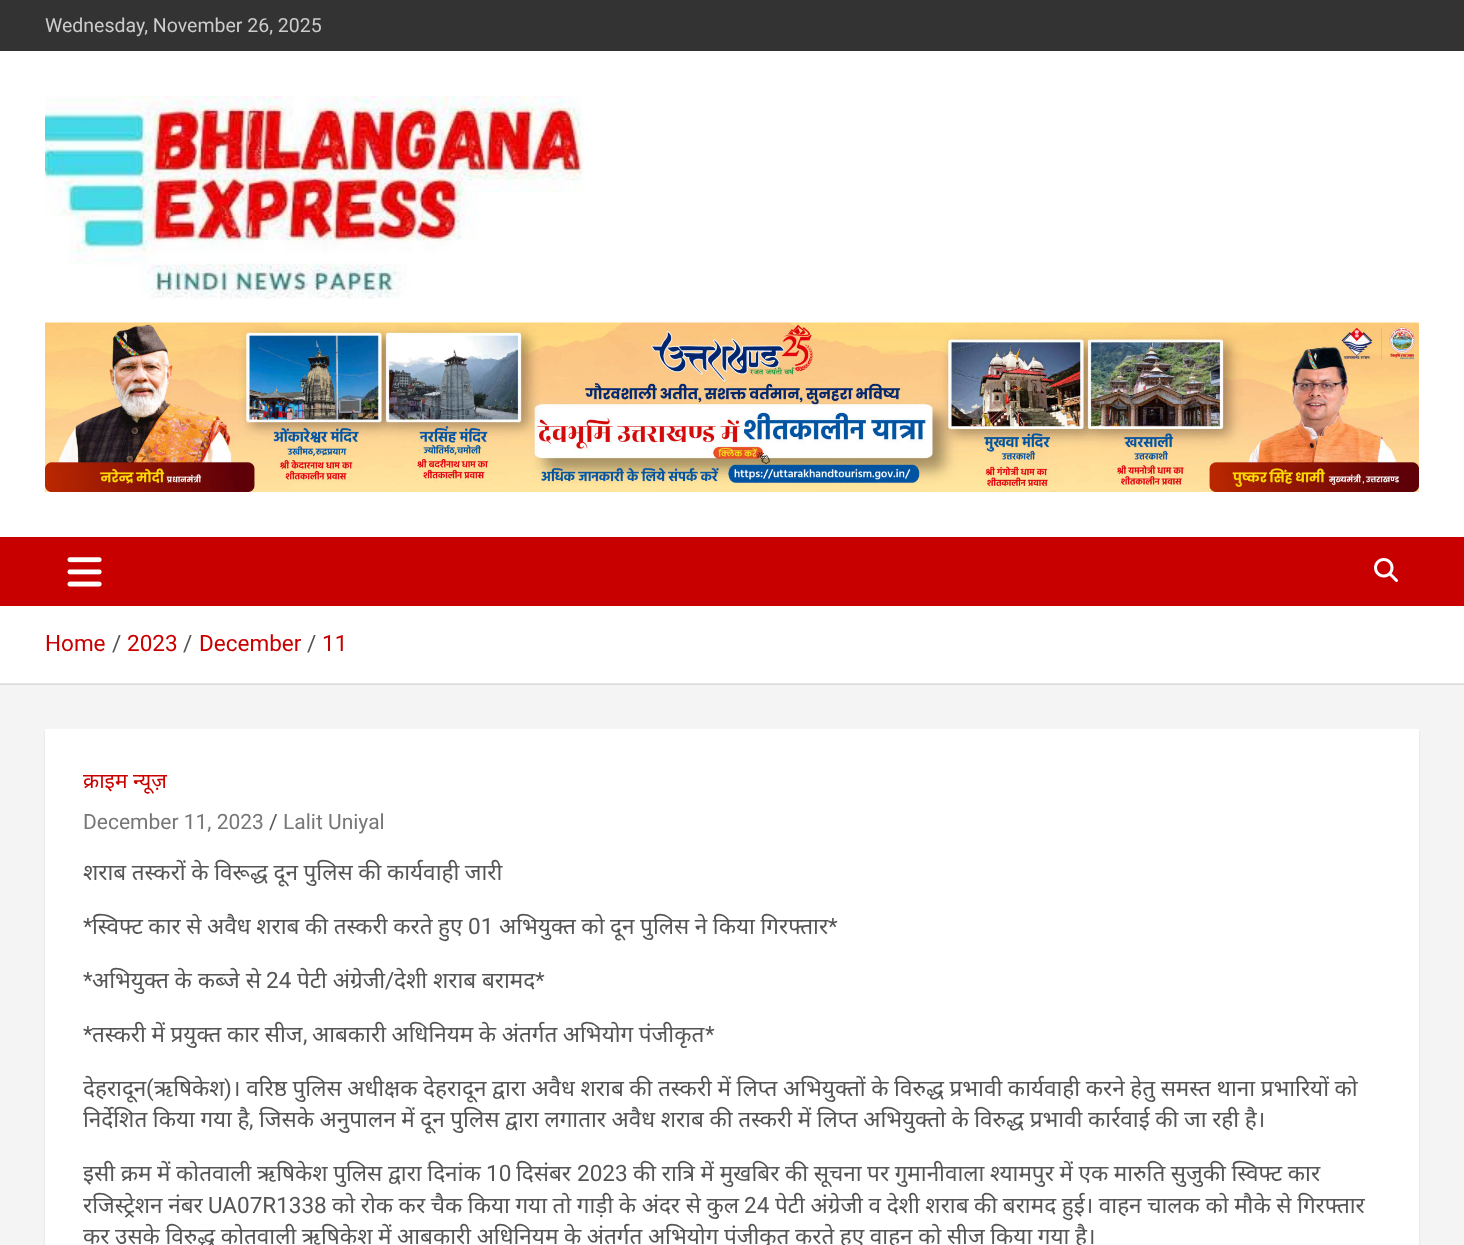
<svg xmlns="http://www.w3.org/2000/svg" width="1464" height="1245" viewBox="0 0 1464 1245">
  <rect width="100%" height="100%" fill="rgb(244,244,244)"/>
  <rect x="0" y="684" width="1464" height="1" fill="rgb(220,220,220)"/>
  <rect x="0" y="0" width="1464" height="51" fill="rgb(51,51,51)"/>
  <text x="45" y="32" font-family="Roboto" font-size="19.5" fill="rgb(204,204,204)">Wednesday, November 26, 2025</text>
  <rect x="0" y="51" width="1464" height="486" fill="rgb(255,255,255)"/>
  <image x="45" y="96" width="539" height="203" href="pic1.png"/>
  <image x="45" y="322" width="1374" height="170" href="pic2.png"/>
  <rect x="0" y="537" width="1464" height="69" fill="rgb(200,0,0)"/>
  <image x="67" y="557" width="35" height="30" href="pic3.png"/>
  <image x="1374" y="558" width="24" height="24" href="pic4.png"/>
  <rect x="0" y="606" width="1464" height="77" fill="rgb(255,255,255)"/>
  <rect x="0" y="683" width="1464" height="1" fill="rgb(230,230,230)"/>
  <text x="45" y="651" font-family="Roboto" font-size="22.5" fill="rgb(200,0,0)">Home</text>
  <text x="112" y="651" font-family="Roboto" font-size="22.5" fill="rgb(85,85,85)">/</text>
  <text x="127" y="651" font-family="Roboto" font-size="22.5" fill="rgb(200,0,0)">2023</text>
  <text x="183" y="651" font-family="Roboto" font-size="22.5" fill="rgb(85,85,85)">/</text>
  <text x="199" y="651" font-family="Roboto" font-size="22.5" fill="rgb(200,0,0)">December</text>
  <text x="307" y="651" font-family="Roboto" font-size="22.5" fill="rgb(85,85,85)">/</text>
  <text x="322" y="651" font-family="Roboto" font-size="22.5" fill="rgb(200,0,0)">11</text>
  <rect x="45" y="731" width="1374" height="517" fill="rgba(0,0,0,0.1)" filter="blur(1px)"/>
  <rect x="45" y="729" width="1374" height="516" fill="rgb(255,255,255)"/>
  <text x="83" y="788" font-family="Noto Sans" font-size="21" fill="rgb(200,0,0)">क्राइम न्यूज़</text>
  <text x="83" y="829" font-family="Roboto" font-size="21" fill="rgb(119,119,119)">December 11, 2023</text>
  <text x="269" y="829" font-family="Roboto" font-size="21" fill="rgb(85,85,85)">/</text>
  <text x="283" y="829" font-family="Roboto" font-size="21" fill="rgb(119,119,119)">Lalit Uniyal</text>
  <text x="83" y="880" word-spacing="-0.25" font-family="Noto Sans" font-size="22.5" fill="rgb(85,85,85)">शराब तस्करों के विरूद्ध दून पुलिस की कार्यवाही जारी</text>
  <text x="83" y="934" font-family="Roboto" font-size="22.5" fill="rgb(85,85,85)">*</text>
  <text x="92" y="934" word-spacing="-0.25" font-family="Noto Sans" font-size="22.5" fill="rgb(85,85,85)">स्विफ्ट कार से अवैध शराब की तस्करी करते हुए</text>
  <text x="468" y="934" font-family="Roboto" font-size="22.5" fill="rgb(85,85,85)">01</text>
  <text x="499" y="934" word-spacing="-0.25" font-family="Noto Sans" font-size="22.5" fill="rgb(85,85,85)">अभियुक्त को दून पुलिस ने किया गिरफ्तार</text>
  <g font-family="Roboto" font-size="22.5" fill="rgb(85,85,85)">
    <text x="828" y="934">*</text>
    <text x="83" y="988">*</text>
  </g>
  <text x="92" y="988" font-family="Noto Sans" font-size="22.5" fill="rgb(85,85,85)">अभियुक्त के कब्जे से</text>
  <text x="266" y="988" font-family="Roboto" font-size="22.5" fill="rgb(85,85,85)">24</text>
  <text x="297" y="988" font-family="Noto Sans" font-size="22.5" fill="rgb(85,85,85)">पेटी अंग्रेजी</text>
  <text x="385" y="988" font-family="Roboto" font-size="22.5" fill="rgb(85,85,85)">/</text>
  <text x="394" y="988" font-family="Noto Sans" font-size="22.5" fill="rgb(85,85,85)">देशी शराब बरामद</text>
  <g font-family="Roboto" font-size="22.5" fill="rgb(85,85,85)">
    <text x="535" y="988">*</text>
    <text x="83" y="1042">*</text>
  </g>
  <g font-family="Noto Sans" font-size="22.5" fill="rgb(85,85,85)">
    <text x="92" y="1042" word-spacing="-0.25">तस्करी में प्रयुक्त कार सीज</text>
    <text x="312" y="1042" word-spacing="-0.25">आबकारी अधिनियम के अंतर्गत अभियोग पंजीकृत</text>
  </g>
  <g font-family="Roboto" font-size="22.5" fill="rgb(85,85,85)">
    <text x="705" y="1042">*</text>
    <text x="303" y="1042">,</text>
  </g>
  <text x="83" y="1096" font-family="Noto Sans" font-size="22.5" fill="rgb(85,85,85)">देहरादून</text>
  <text x="146" y="1096" font-family="Roboto" font-size="22.5" fill="rgb(85,85,85)">(</text>
  <text x="154" y="1096" font-family="Noto Sans" font-size="22.5" fill="rgb(85,85,85)">ऋषिकेश</text>
  <text x="224" y="1096" font-family="Roboto" font-size="22.5" fill="rgb(85,85,85)">)</text>
  <g font-family="Noto Sans" font-size="22.5" fill="rgb(85,85,85)">
    <text x="232" y="1096" word-spacing="-0.25">। वरिष्ठ पुलिस अधीक्षक देहरादून द्वारा अवैध शराब की तस्करी में लिप्त अभियुक्तों के विरुद्ध प्रभावी कार्यवाही करने हेतु समस्त थाना प्रभारियों को</text>
    <text x="83" y="1127" word-spacing="-0.25">निर्देशित किया गया है</text>
  </g>
  <text x="249" y="1127" font-family="Roboto" font-size="22.5" fill="rgb(85,85,85)">,</text>
  <g font-family="Noto Sans" font-size="22.5" fill="rgb(85,85,85)">
    <text x="259" y="1127" word-spacing="-0.25">जिसके अनुपालन में दून पुलिस द्वारा लगातार अवैध शराब की तस्करी में लिप्त अभियुक्तो के विरुद्ध प्रभावी कार्रवाई की जा रही है।</text>
    <text x="83" y="1181" word-spacing="-0.25">इसी क्रम में कोतवाली ऋषिकेश पुलिस द्वारा दिनांक</text>
  </g>
  <text x="486" y="1181" font-family="Roboto" font-size="22.5" fill="rgb(85,85,85)">10</text>
  <text x="516" y="1181" font-family="Noto Sans" font-size="22.5" fill="rgb(85,85,85)">दिसंबर</text>
  <text x="577" y="1181" font-family="Roboto" font-size="22.5" fill="rgb(85,85,85)">2023</text>
  <g font-family="Noto Sans" font-size="22.5" fill="rgb(85,85,85)">
    <text x="633" y="1181" word-spacing="-0.25">की रात्रि में मुखबिर की सूचना पर गुमानीवाला श्यामपुर में एक मारुति सुजुकी स्विफ्ट कार</text>
    <text x="83" y="1213" word-spacing="-0.25">रजिस्ट्रेशन नंबर</text>
  </g>
  <text x="208" y="1213" font-family="Roboto" font-size="22.5" fill="rgb(85,85,85)">UA07R1338</text>
  <text x="332" y="1213" word-spacing="-0.25" font-family="Noto Sans" font-size="22.5" fill="rgb(85,85,85)">को रोक कर चैक किया गया तो गाड़ी के अंदर से कुल</text>
  <text x="744" y="1213" font-family="Roboto" font-size="22.5" fill="rgb(85,85,85)">24</text>
  <g font-family="Noto Sans" font-size="22.5" fill="rgb(85,85,85)">
    <text x="775" y="1213" word-spacing="-0.25">पेटी अंग्रेजी व देशी शराब की बरामद हुई। वाहन चालक को मौके से गिरफ्तार</text>
    <text x="83" y="1244" word-spacing="-0.25">कर उसके विरुद्ध कोतवाली ऋषिकेश में आबकारी अधिनियम के अंतर्गत अभियोग पंजीकृत करते हुए वाहन को सीज किया गया है।</text>
  </g>
</svg>
